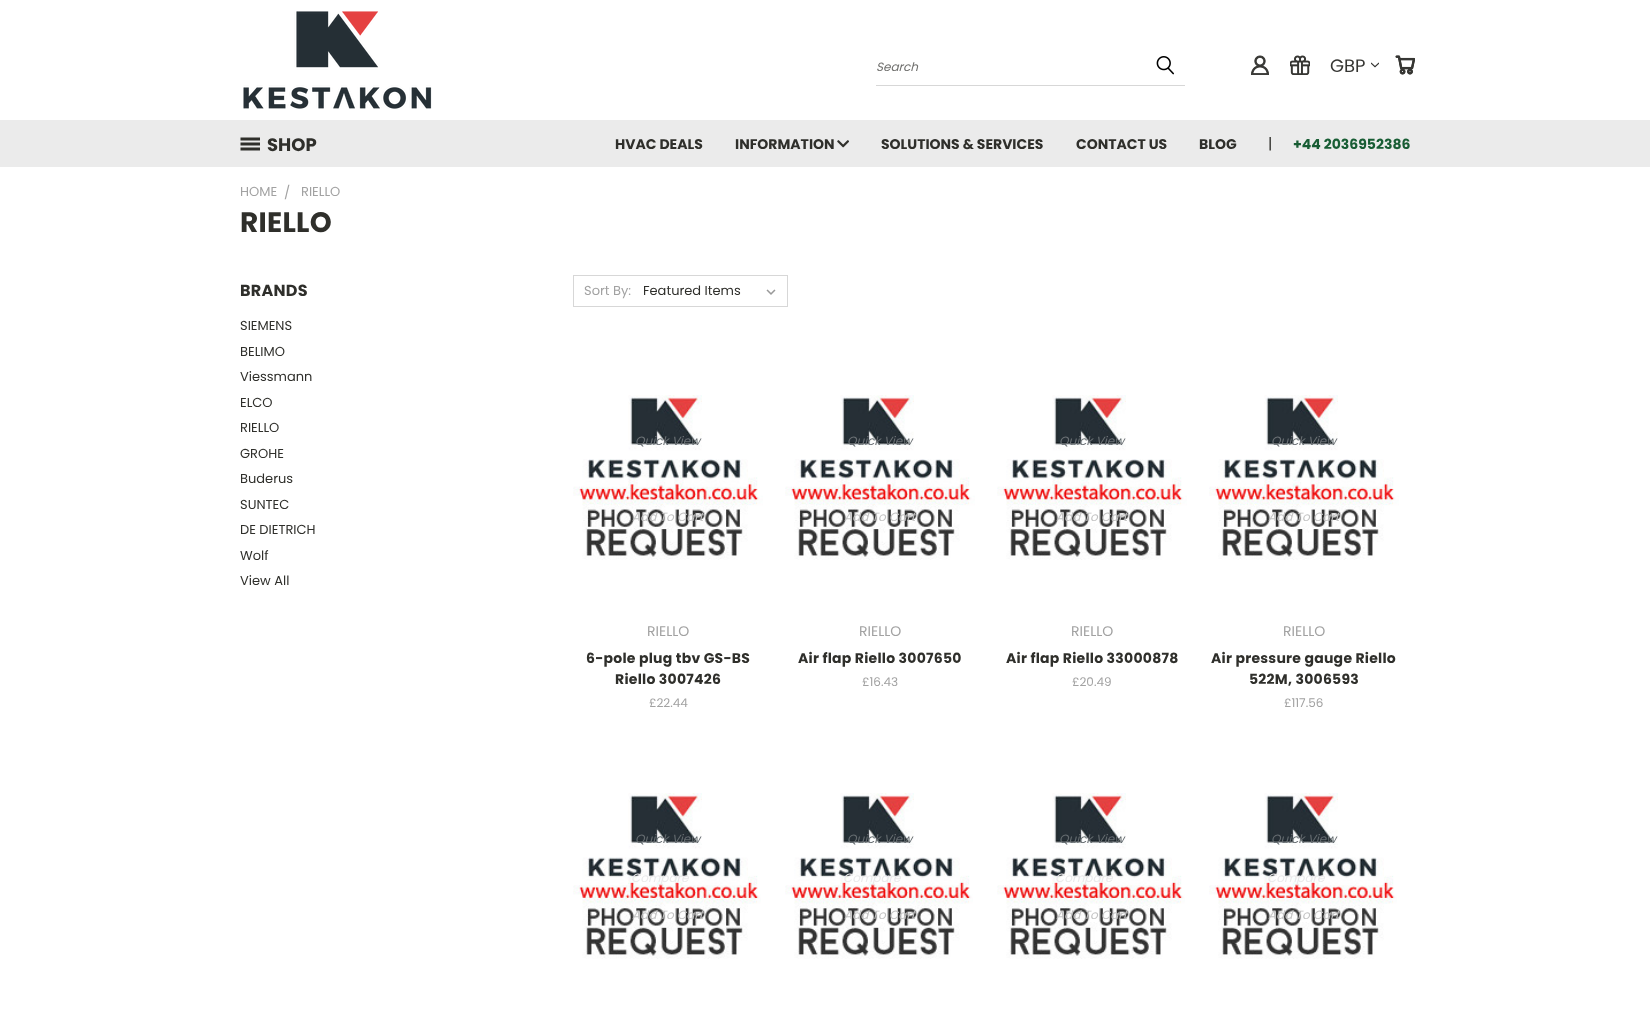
<svg xmlns="http://www.w3.org/2000/svg" width="1650" height="1021" viewBox="0 0 1650 1021">
  <rect width="100%" height="100%" fill="rgb(255,255,255)"/>
  <image x="243" y="11" width="189" height="98" href="pic1.png"/>
  <rect x="876" y="85" width="309" height="1" fill="rgb(215,215,215)"/>
  <text x="876" y="71" font-family="Poppins" font-size="12" font-style="italic" fill="rgb(112,112,110)">Search</text>
  <image x="1156" y="56" width="18" height="19" href="pic2.png"/>
  <image x="1251" y="55" width="18" height="20" href="pic3.png"/>
  <image x="1290" y="55" width="20" height="20" href="pic4.png"/>
  <text x="1330" y="72" font-family="Poppins" font-size="18" fill="rgb(54,54,51)">GBP</text>
  <image x="1371" y="62" width="8" height="6" href="pic5.png"/>
  <image x="1395" y="55" width="20" height="20" href="pic6.png"/>
  <rect x="0" y="120" width="1650" height="47" fill="rgb(235,235,235)"/>
  <image x="240" y="137" width="20" height="14" href="pic7.png"/>
  <text x="267" y="151" font-family="Poppins" font-size="18" font-weight="bold" fill="rgb(47,47,43)">SHOP</text>
  <g font-family="Poppins" font-size="14" font-weight="bold" fill="rgb(47,47,43)">
    <text x="615" y="149">HVAC DEALS</text>
    <text x="735" y="149">INFORMATION</text>
  </g>
  <image x="837" y="140" width="12" height="8" href="pic8.png"/>
  <g font-family="Poppins" font-size="14" font-weight="bold" fill="rgb(47,47,43)">
    <text x="881" y="149">SOLUTIONS &amp; SERVICES</text>
    <text x="1076" y="149">CONTACT US</text>
    <text x="1199" y="149">BLOG</text>
  </g>
  <text x="1268" y="149" font-family="Poppins" font-size="15" fill="rgb(47,47,43)">|</text>
  <text x="1293" y="149" font-family="Poppins" font-size="14" font-weight="bold" fill="rgb(24,93,52)">+44 2036952386</text>
  <g font-family="Poppins" font-size="13" fill="rgb(162,162,162)">
    <text x="240" y="196">HOME</text>
    <text x="284" y="197">/</text>
    <text x="301" y="196">RIELLO</text>
  </g>
  <text x="240" y="232" font-family="Poppins" font-size="28" font-weight="bold" letter-spacing="0.25" fill="rgb(47,47,43)">RIELLO</text>
  <text x="240" y="296" font-family="Poppins" font-size="16" font-weight="bold" letter-spacing="0.25" fill="rgb(47,47,43)">BRANDS</text>
  <g font-family="Poppins" font-size="13" fill="rgb(47,47,43)">
    <text x="240" y="330">SIEMENS</text>
    <text>
      <tspan x="240" y="356">BELIMO</tspan>
      <tspan x="240" y="381">Viessmann</tspan>
    </text>
    <text>
      <tspan x="240" y="407">ELCO</tspan>
      <tspan x="240" y="432">RIELLO</tspan>
    </text>
    <text>
      <tspan x="240" y="458">GROHE</tspan>
      <tspan x="240" y="483">Buderus</tspan>
    </text>
    <text>
      <tspan x="240" y="509">SUNTEC</tspan>
      <tspan x="240" y="534">DE DIETRICH</tspan>
    </text>
    <text>
      <tspan x="240" y="560">Wolf</tspan>
      <tspan x="240" y="585">View All</tspan>
    </text>
  </g>
  <rect x="573.5" y="275.5" width="214" height="31" fill="none" stroke="rgb(215,215,215)"/>
  <text x="584" y="295" font-family="Poppins" font-size="13" fill="rgb(162,162,162)">Sort By:</text>
  <image x="766" y="289" width="10" height="6" href="pic9.png"/>
  <text x="643" y="295" font-family="Poppins" font-size="13" fill="rgb(47,47,43)">Featured Items</text>
  <image x="573" y="395" width="190" height="165" href="pic10.png"/>
  <text x="635" y="445" font-family="Poppins" font-size="12" font-style="italic" fill="rgb(106,112,116)">Quick View</text>
  <text x="632" y="521" font-family="Poppins" font-size="12" font-style="italic" fill="rgb(195,195,195)">Add To Cart</text>
  <text x="647" y="636" font-family="Poppins" font-size="14" fill="rgb(162,162,162)">RIELLO</text>
  <g font-family="Poppins" font-size="14" font-weight="bold" letter-spacing="0.25" fill="rgb(47,47,43)">
    <text x="586" y="663">6-pole plug tbv GS-BS</text>
    <text x="615" y="684">Riello 3007426</text>
  </g>
  <text x="649" y="707" font-family="Poppins" font-size="12" fill="rgb(162,162,162)">£22.44</text>
  <image x="785" y="395" width="190" height="165" href="pic10.png"/>
  <text x="847" y="445" font-family="Poppins" font-size="12" font-style="italic" fill="rgb(106,112,116)">Quick View</text>
  <text x="844" y="521" font-family="Poppins" font-size="12" font-style="italic" fill="rgb(195,195,195)">Add To Cart</text>
  <text x="859" y="636" font-family="Poppins" font-size="14" fill="rgb(162,162,162)">RIELLO</text>
  <text x="798" y="663" font-family="Poppins" font-size="14" font-weight="bold" letter-spacing="0.25" fill="rgb(47,47,43)">Air flap Riello 3007650</text>
  <text x="862" y="686" font-family="Poppins" font-size="12" fill="rgb(162,162,162)">£16.43</text>
  <image x="997" y="395" width="190" height="165" href="pic10.png"/>
  <text x="1059" y="445" font-family="Poppins" font-size="12" font-style="italic" fill="rgb(106,112,116)">Quick View</text>
  <text x="1056" y="521" font-family="Poppins" font-size="12" font-style="italic" fill="rgb(195,195,195)">Add To Cart</text>
  <text x="1071" y="636" font-family="Poppins" font-size="14" fill="rgb(162,162,162)">RIELLO</text>
  <text x="1006" y="663" font-family="Poppins" font-size="14" font-weight="bold" letter-spacing="0.25" fill="rgb(47,47,43)">Air flap Riello 33000878</text>
  <text x="1072" y="686" font-family="Poppins" font-size="12" fill="rgb(162,162,162)">£20.49</text>
  <image x="1209" y="395" width="190" height="165" href="pic10.png"/>
  <text x="1271" y="445" font-family="Poppins" font-size="12" font-style="italic" fill="rgb(106,112,116)">Quick View</text>
  <text x="1268" y="521" font-family="Poppins" font-size="12" font-style="italic" fill="rgb(195,195,195)">Add To Cart</text>
  <text x="1283" y="636" font-family="Poppins" font-size="14" fill="rgb(162,162,162)">RIELLO</text>
  <g font-family="Poppins" font-size="14" font-weight="bold" letter-spacing="0.25" fill="rgb(47,47,43)">
    <text x="1211" y="663">Air pressure gauge Riello</text>
    <text x="1249" y="684">522M, 3006593</text>
  </g>
  <text x="1284" y="707" font-family="Poppins" font-size="12" fill="rgb(162,162,162)">£117.56</text>
  <image x="573" y="793" width="188" height="166" href="pic11.png"/>
  <text x="635" y="843" font-family="Poppins" font-size="12" font-style="italic" fill="rgb(100,107,111)">Quick View</text>
  <text x="631" y="882" font-family="Poppins" font-size="12" font-style="italic" fill="rgb(234,234,235)">Compare</text>
  <text x="632" y="919" font-family="Poppins" font-size="12" font-style="italic" fill="rgb(195,195,195)">Add To Cart</text>
  <image x="785" y="793" width="188" height="166" href="pic11.png"/>
  <text x="847" y="843" font-family="Poppins" font-size="12" font-style="italic" fill="rgb(100,107,111)">Quick View</text>
  <text x="843" y="882" font-family="Poppins" font-size="12" font-style="italic" fill="rgb(234,234,235)">Compare</text>
  <text x="844" y="919" font-family="Poppins" font-size="12" font-style="italic" fill="rgb(195,195,195)">Add To Cart</text>
  <image x="997" y="793" width="188" height="166" href="pic11.png"/>
  <text x="1059" y="843" font-family="Poppins" font-size="12" font-style="italic" fill="rgb(100,107,111)">Quick View</text>
  <text x="1055" y="882" font-family="Poppins" font-size="12" font-style="italic" fill="rgb(234,234,235)">Compare</text>
  <text x="1056" y="919" font-family="Poppins" font-size="12" font-style="italic" fill="rgb(195,195,195)">Add To Cart</text>
  <image x="1209" y="793" width="188" height="166" href="pic11.png"/>
  <text x="1271" y="843" font-family="Poppins" font-size="12" font-style="italic" fill="rgb(100,107,111)">Quick View</text>
  <text x="1267" y="882" font-family="Poppins" font-size="12" font-style="italic" fill="rgb(234,234,235)">Compare</text>
  <text x="1268" y="919" font-family="Poppins" font-size="12" font-style="italic" fill="rgb(195,195,195)">Add To Cart</text>
</svg>
